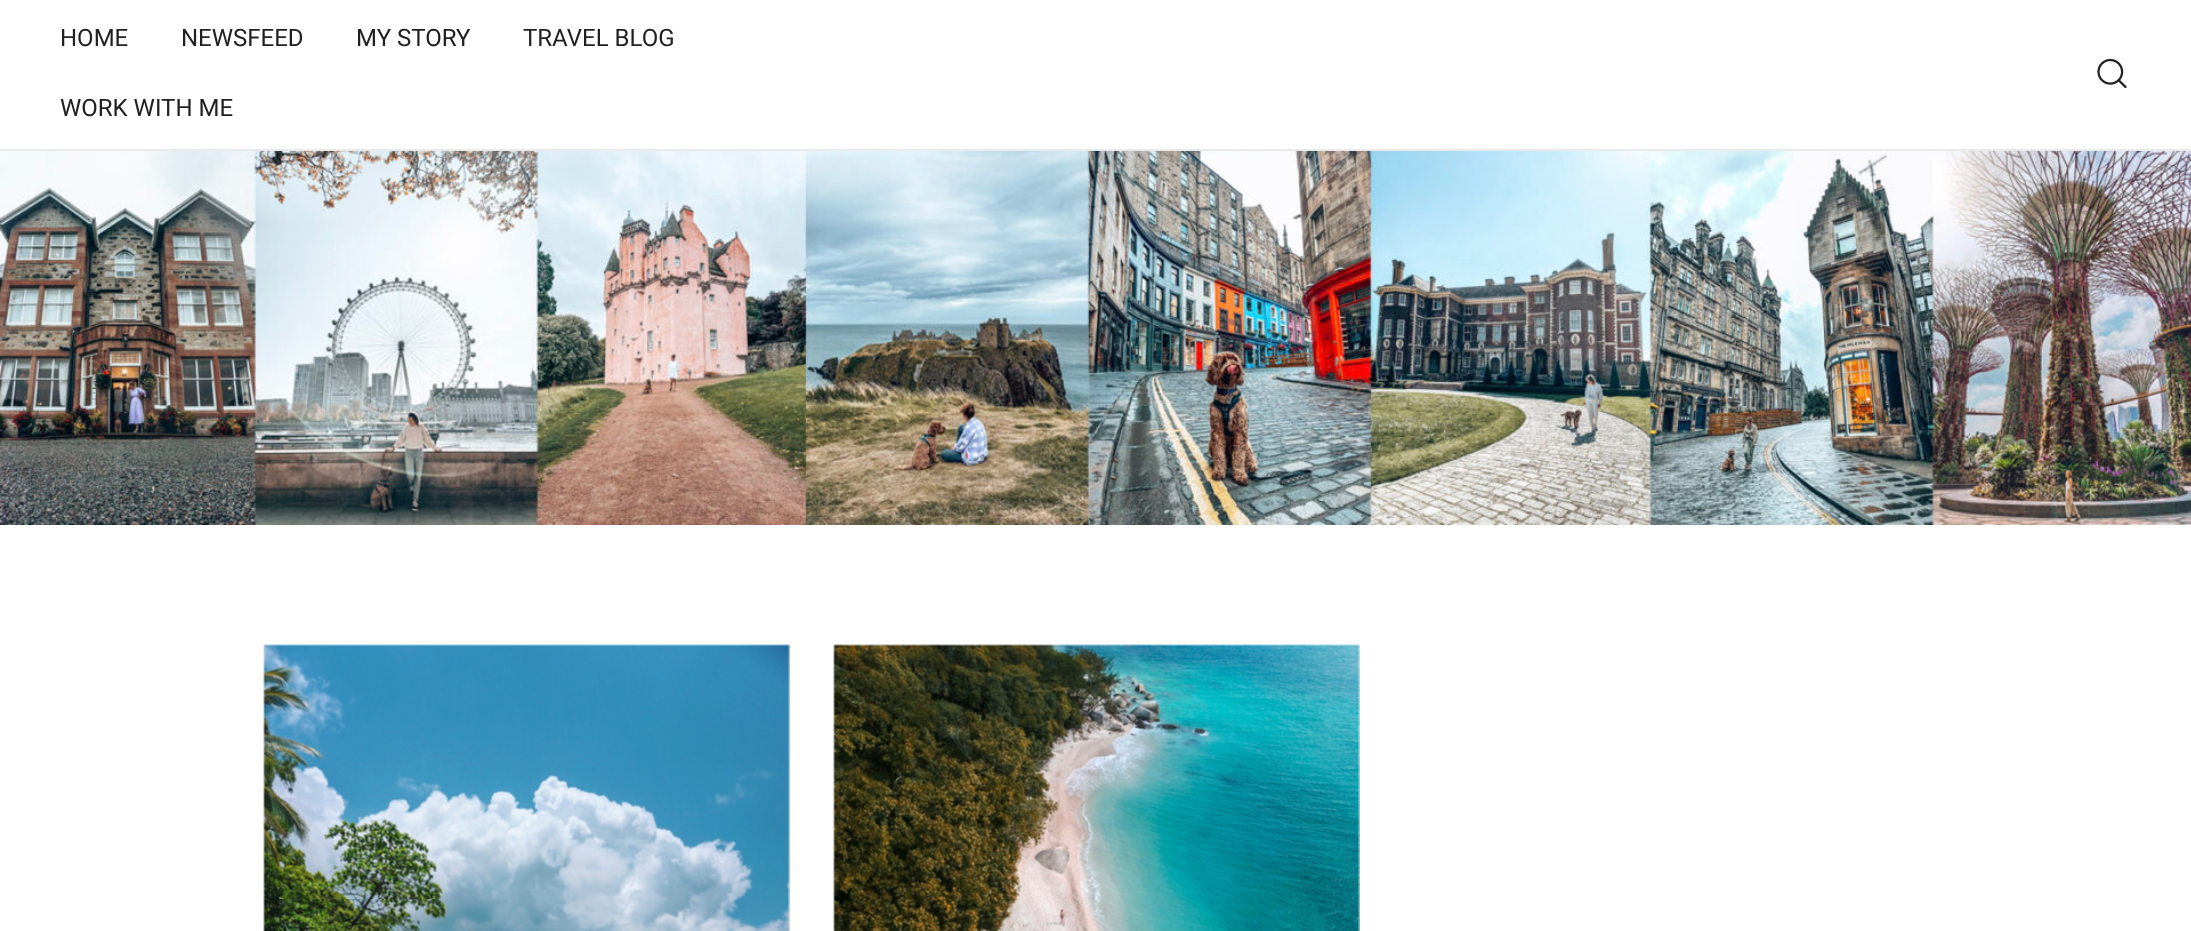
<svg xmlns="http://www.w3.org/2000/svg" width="2191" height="931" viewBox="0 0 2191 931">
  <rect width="100%" height="100%" fill="rgb(255,255,255)"/>
  <rect x="0" y="149" width="2191" height="2" fill="rgb(234,234,234)"/>
  <g font-family="Roboto" font-size="24" fill="rgb(33,33,33)">
    <text x="60" y="46">HOME</text>
    <text x="181" y="46">NEWSFEED</text>
    <text x="356" y="46">MY STORY</text>
    <text x="523" y="46">TRAVEL BLOG</text>
    <text x="60" y="116">WORK WITH ME</text>
  </g>
  <image x="2097" y="58" width="30" height="31" href="pic1.png"/>
  <image x="0" y="151" width="2191" height="374" href="pic2.png"/>
  <image x="263" y="644" width="527" height="287" href="pic3.png"/>
  <image x="833" y="644" width="527" height="287" href="pic4.png"/>
</svg>
